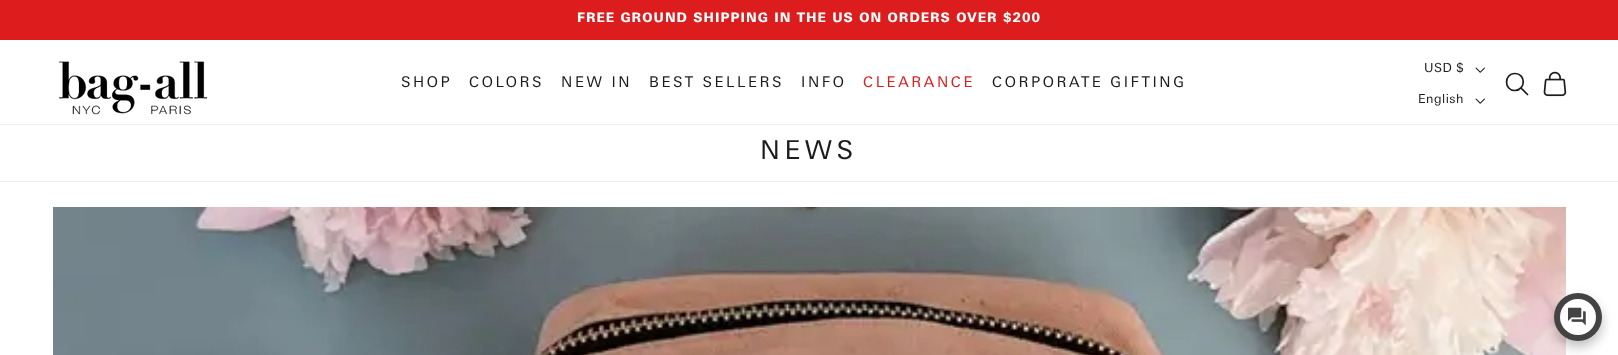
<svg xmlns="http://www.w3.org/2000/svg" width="1618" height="355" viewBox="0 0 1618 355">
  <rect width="100%" height="100%" fill="rgb(255,255,255)"/>
  <rect x="0" y="0" width="1618" height="40" fill="rgb(221,29,29)"/>
  <text x="577" y="22" font-family="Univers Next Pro" font-size="13" font-weight="900" letter-spacing="1.05" fill="rgb(255,255,255)">FREE GROUND SHIPPING IN THE US ON ORDERS OVER $200</text>
  <rect x="0" y="124" width="1618" height="1" fill="rgb(237,237,237)"/>
  <image x="59" y="61" width="149" height="54" href="pic1.png"/>
  <g font-family="Univers Next Pro" font-size="14.75" letter-spacing="2.6" fill="rgb(28,28,28)">
    <text x="401" y="87">SHOP</text>
    <text x="469" y="87">COLORS</text>
    <text x="561" y="87">NEW IN</text>
    <text x="649" y="87">BEST SELLERS</text>
    <text x="801" y="87">INFO</text>
  </g>
  <text x="863" y="87" font-family="Univers Next Pro" font-size="14.75" letter-spacing="2.6" fill="rgb(221,29,29)">CLEARANCE</text>
  <text x="992" y="87" font-family="Univers Next Pro" font-size="14.75" letter-spacing="2.6" fill="rgb(28,28,28)">CORPORATE GIFTING</text>
  <text x="1424" y="72" font-family="Univers Next Pro" font-size="12.5" letter-spacing="0.5" fill="rgb(28,28,28)">USD $</text>
  <image x="1475" y="67" width="10" height="6" href="pic2.png"/>
  <text x="1418" y="103" font-family="Univers Next Pro" font-size="12.5" letter-spacing="0.5" fill="rgb(28,28,28)">English</text>
  <image x="1475" y="98" width="10" height="6" href="pic2.png"/>
  <path d="M1515 73.5C1503.5 73.5 1504 91 1515 90.5C1526 90 1526 73.5 1515 73.5Z" fill="none" stroke="rgb(28,28,28)" stroke-width="1.7"/>
  <path d="M1521.5 88.5L1527.5 94.5" fill="none" stroke="rgb(28,28,28)" stroke-width="1.7" stroke-linecap="round"/>
  <image x="1543" y="71" width="24" height="26" href="pic3.png"/>
  <rect x="0" y="181" width="1618" height="1" fill="rgb(237,237,237)"/>
  <text x="760" y="159" font-family="Univers Next Pro" font-size="26" letter-spacing="4.5" fill="rgb(28,28,28)">NEWS</text>
  <image x="53" y="207" width="1513" height="148" href="pic4.png"/>
  <rect x="1554" y="299" width="48" height="48" rx="24" fill="rgba(0,0,0,0.25)" filter="blur(6px)"/>
  <circle cx="1578" cy="317" r="24" fill="rgb(67,67,67)"/>
  <circle cx="1578" cy="317" r="18" fill="rgb(255,255,255)"/>
  <image x="1568" y="307" width="18" height="19" href="pic5.png"/>
</svg>
